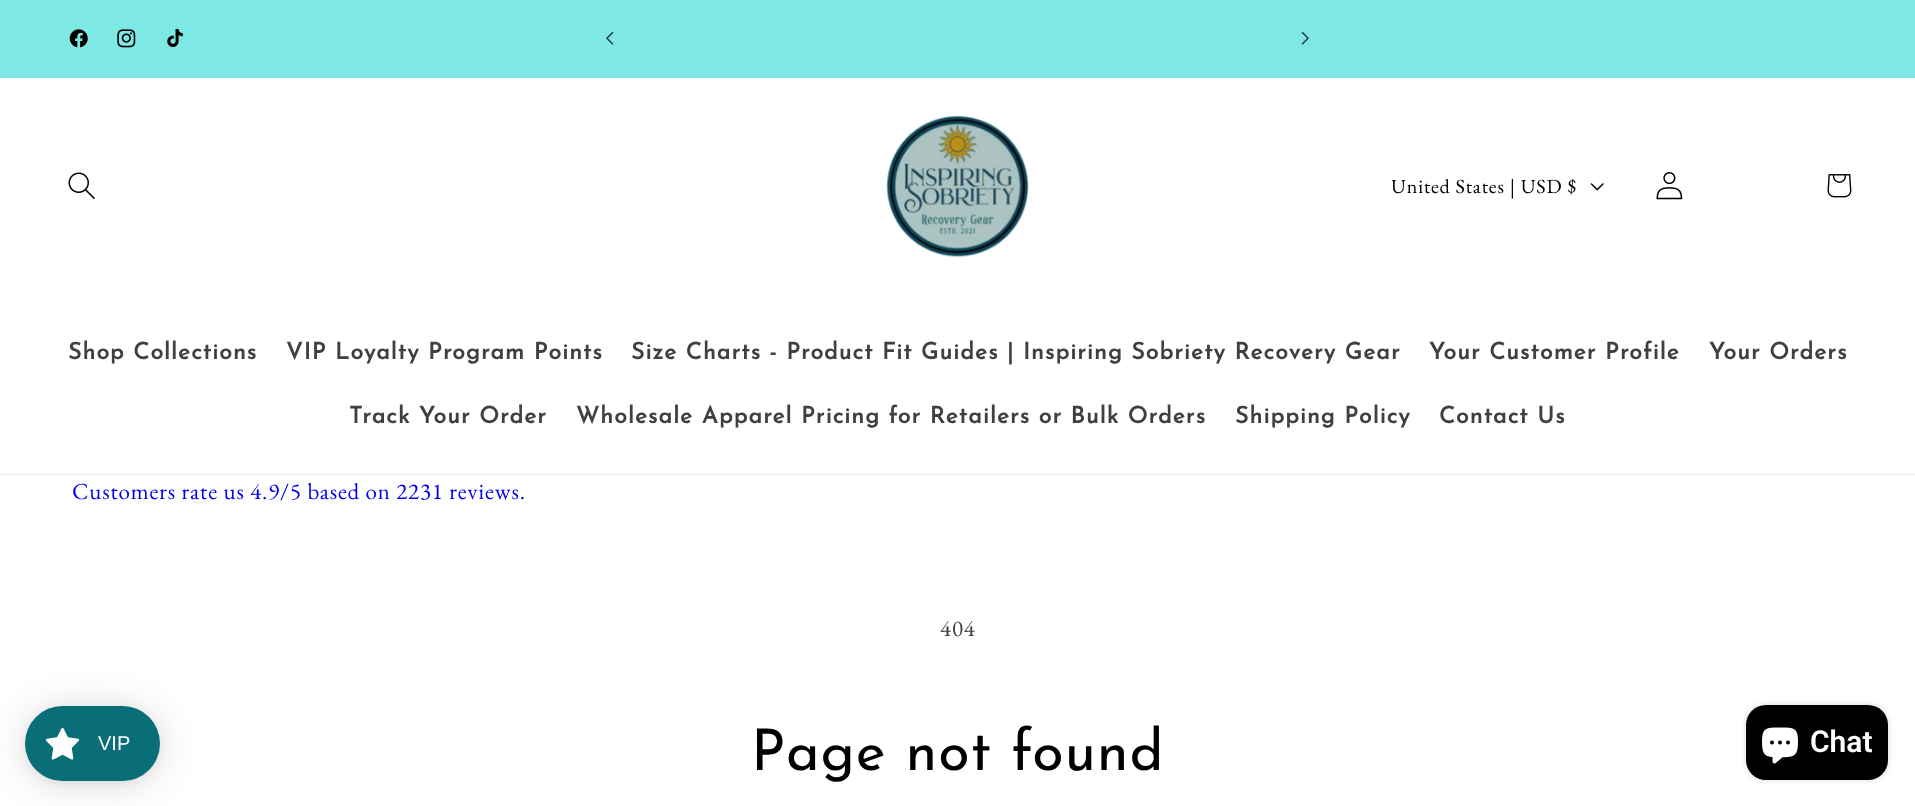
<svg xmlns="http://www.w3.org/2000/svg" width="1915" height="806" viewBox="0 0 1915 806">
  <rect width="100%" height="100%" fill="rgb(255,255,255)"/>
  <rect x="0" y="0" width="1915" height="78" fill="rgb(126,233,228)"/>
  <image x="69" y="29" width="19" height="19" href="pic1.png"/>
  <image x="117" y="29" width="19" height="19" href="pic2.png"/>
  <image x="167" y="29" width="16" height="18" href="pic3.png"/>
  <image x="606" y="31" width="8" height="14" href="pic4.png"/>
  <image x="1301" y="31" width="8" height="14" href="pic5.png"/>
  <rect x="0" y="474" width="1915" height="1" fill="rgb(235,235,235)"/>
  <image x="68" y="172" width="27" height="27" href="pic6.png"/>
  <image x="886" y="115" width="143" height="143" href="pic7.png"/>
  <text x="1391" y="193" font-family="EB Garamond" font-size="20.1" letter-spacing="0.85" fill="rgb(0,0,0)">United States | USD $</text>
  <image x="1590" y="183" width="14" height="8" href="pic8.png"/>
  <image x="1656" y="172" width="27" height="28" href="pic9.png"/>
  <image x="1827" y="174" width="25" height="24" href="pic10.png"/>
  <g font-family="Josefin Sans" font-size="23" font-weight="bold" letter-spacing="1.15" fill="rgb(64,64,64)">
    <text x="68" y="359">Shop Collections</text>
    <text x="286" y="359">VIP Loyalty Program Points</text>
    <text x="631" y="359">Size Charts - Product Fit Guides | Inspiring Sobriety Recovery Gear</text>
    <text x="1429" y="359">Your Customer Profile</text>
    <text x="1709" y="359">Your Orders</text>
    <text x="349" y="423">Track Your Order</text>
    <text x="576" y="423">Wholesale Apparel Pricing for Retailers or Bulk Orders</text>
    <text x="1235" y="423">Shipping Policy</text>
    <text x="1439" y="423">Contact Us</text>
  </g>
  <text x="72" y="499" font-family="EB Garamond" font-size="23" letter-spacing="0.85" fill="rgb(0,0,238)">Customers rate us 4.9/5 based on 2231 reviews.</text>
  <rect x="25" y="709" width="135" height="75" rx="37.5" fill="rgba(0,0,0,0.15)" filter="blur(19px)"/>
  <rect x="25" y="708" width="135" height="75" rx="37.5" fill="rgba(0,0,0,0.05)" filter="blur(4px)"/>
  <rect x="25" y="706" width="135" height="75" rx="37.5" fill="rgb(9,110,120)"/>
  <image x="45" y="727" width="35" height="33" href="pic11.png"/>
  <text x="98" y="750" font-family="Liberation Sans" font-size="20" fill="rgb(255,255,255)">VIP</text>
  <text x="940" y="636" font-family="EB Garamond" font-size="23" letter-spacing="0.85" fill="rgb(64,64,64)">404</text>
  <text x="751" y="770" font-family="Josefin Sans" font-size="57.5" letter-spacing="0.85" fill="rgb(0,0,0)">Page not found</text>
  <rect x="1746" y="705" width="142" height="75" rx="20" fill="rgba(0,0,0,0.15)" filter="blur(3px)"/>
  <rect x="1746" y="705" width="142" height="75" rx="20" fill="rgb(0,0,0)"/>
  <image x="1762" y="727" width="36" height="37" href="pic12.png"/>
  <text x="1810" y="752" font-family="Roboto" font-size="30" font-weight="600" fill="rgb(255,255,255)">Chat</text>
</svg>
